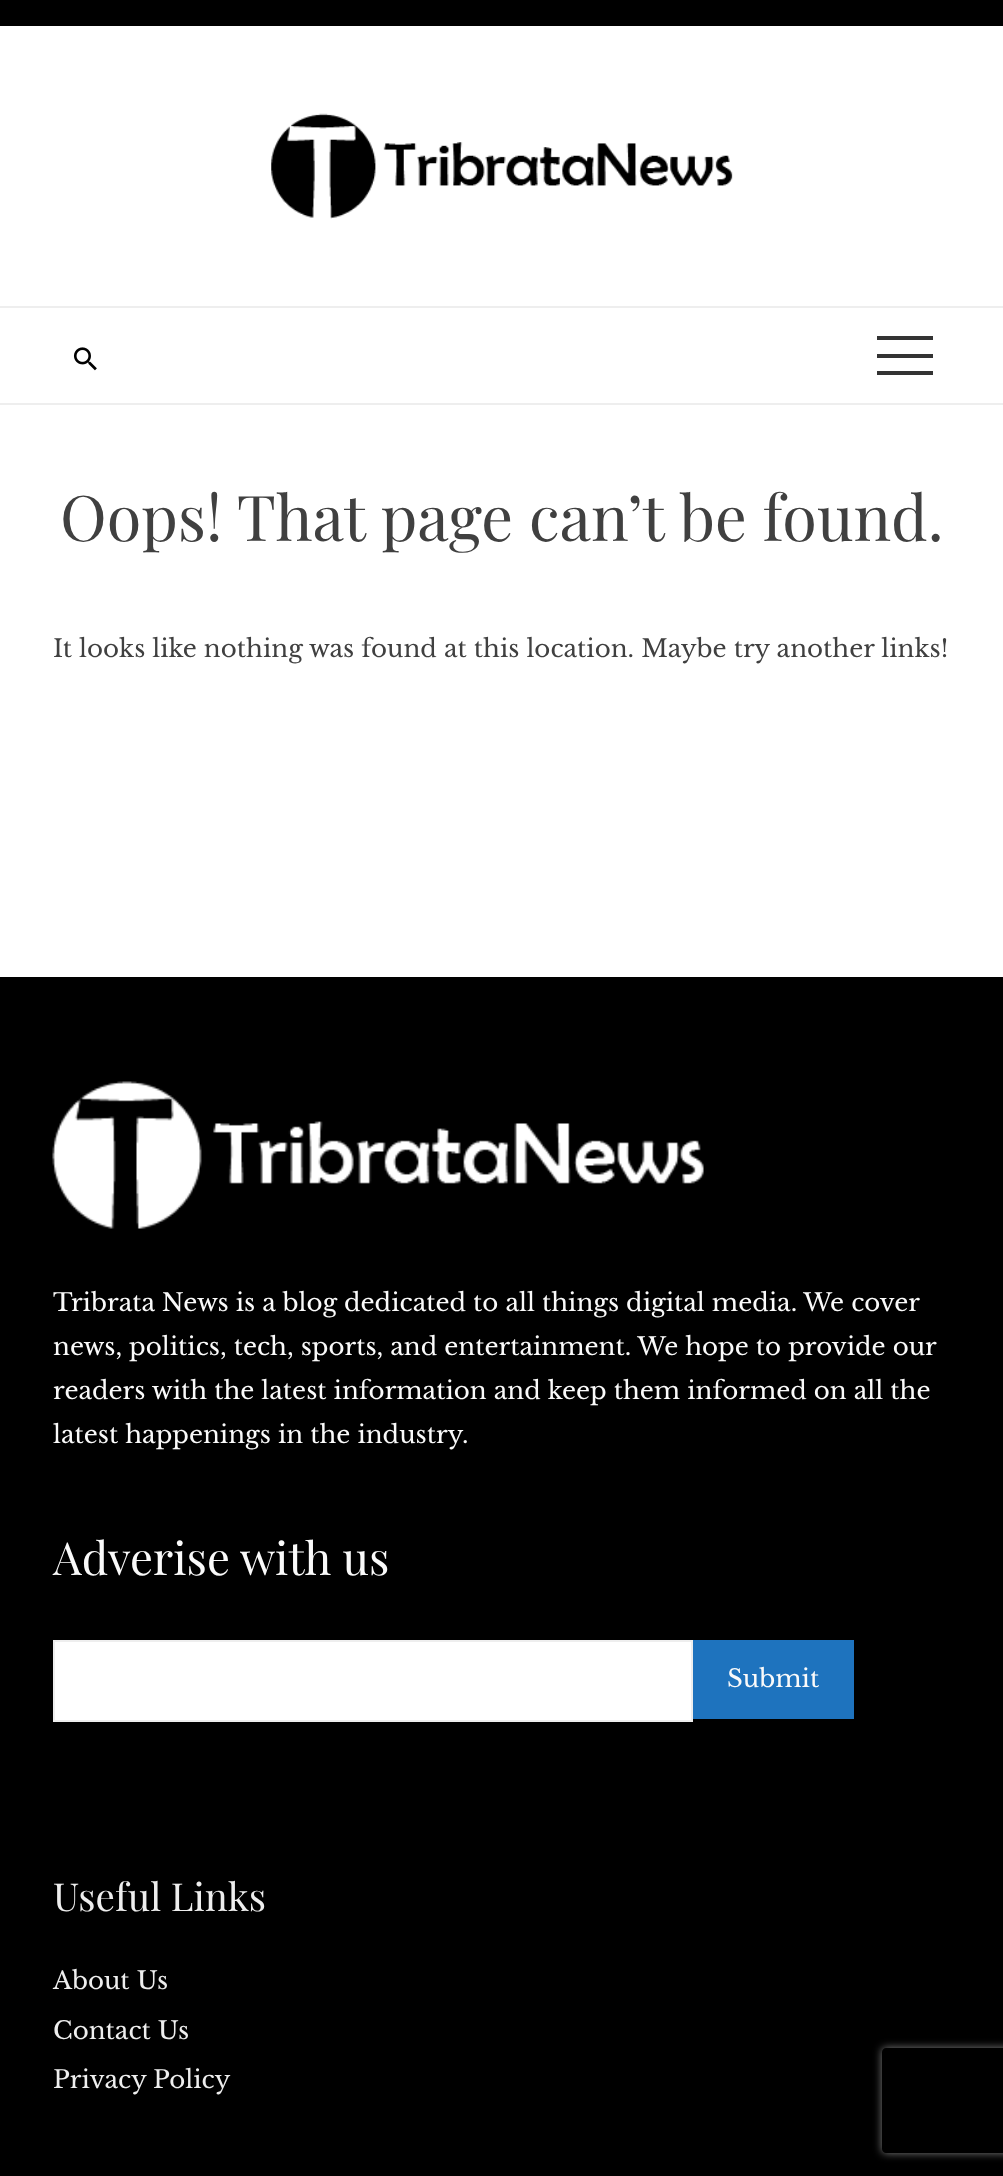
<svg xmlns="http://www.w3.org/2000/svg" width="1003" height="2176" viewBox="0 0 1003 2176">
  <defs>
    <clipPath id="clip1"><path d="M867 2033H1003V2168H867ZM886 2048H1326C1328 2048 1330 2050 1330 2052V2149C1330 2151 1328 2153 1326 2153H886C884 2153 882 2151 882 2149V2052C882 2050 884 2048 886 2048Z" clip-rule="evenodd"/></clipPath>
  </defs>
  <rect width="100%" height="100%" fill="rgb(255,255,255)"/>
  <rect x="0" y="0" width="1003" height="26" fill="rgb(0,0,0)"/>
  <image x="271" y="113" width="462" height="106" href="pic1.png"/>
  <rect x="0" y="306" width="1003" height="2" fill="rgb(238,238,238)"/>
  <rect x="0" y="403" width="1003" height="2" fill="rgb(238,238,238)"/>
  <image x="73" y="347" width="24" height="24" href="pic2.png"/>
  <rect x="877" y="336" width="56" height="4" fill="rgb(51,51,51)"/>
  <rect x="877" y="371" width="56" height="4" fill="rgb(51,51,51)"/>
  <rect x="877" y="354" width="56" height="4" fill="rgb(51,51,51)"/>
  <text x="60" y="541" font-family="Playfair Display" font-size="63" fill="rgb(64,64,64)">Oops! That page can’t be found.</text>
  <text x="53" y="657" font-family="Libre Baskerville" font-size="24.5" fill="rgb(64,64,64)">It looks like nothing was found at this location. Maybe try another links!</text>
  <rect x="0" y="977" width="1003" height="1199" fill="rgb(0,0,0)"/>
  <image x="52" y="1081" width="652" height="148" href="pic3.png"/>
  <g font-family="Libre Baskerville" font-size="24.5" fill="rgb(250,250,250)">
    <text>
      <tspan x="53" y="1311">Tribrata News is a blog dedicated to all things digital media. We cover</tspan>
      <tspan x="53" y="1355">news, politics, tech, sports, and entertainment. We hope to provide our</tspan>
      <tspan x="53" y="1399">readers with the latest information and keep them informed on all the</tspan>
      <tspan x="53" y="1443">latest happenings in the industry.</tspan>
    </text>
  </g>
  <text x="53" y="1575" font-family="Playfair Display" font-size="45.5" fill="rgb(250,250,250)">Adverise with us</text>
  <rect x="54" y="1641" width="638" height="80" fill="rgb(255,255,255)" stroke="rgb(238,238,238)" stroke-width="2"/>
  <rect x="693" y="1640" width="161" height="79" fill="rgb(30,115,190)"/>
  <text x="727" y="1687" font-family="Libre Baskerville" font-size="24.5" fill="rgb(250,250,250)">Submit</text>
  <text x="53" y="1911" font-family="Playfair Display" font-size="38.5" fill="rgb(238,238,238)">Useful Links</text>
  <g font-family="Libre Baskerville" font-size="24.5" fill="rgb(238,238,238)">
    <text x="53" y="1989">About Us</text>
    <text x="53" y="2039">Contact Us</text>
    <text x="53" y="2088">Privacy Policy</text>
  </g>
  <g clip-path="url(#clip1)">
    <rect x="882" y="2048" width="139" height="105" rx="4" fill="rgb(128,128,128)" filter="blur(4.5px)"/>
  </g>
</svg>
